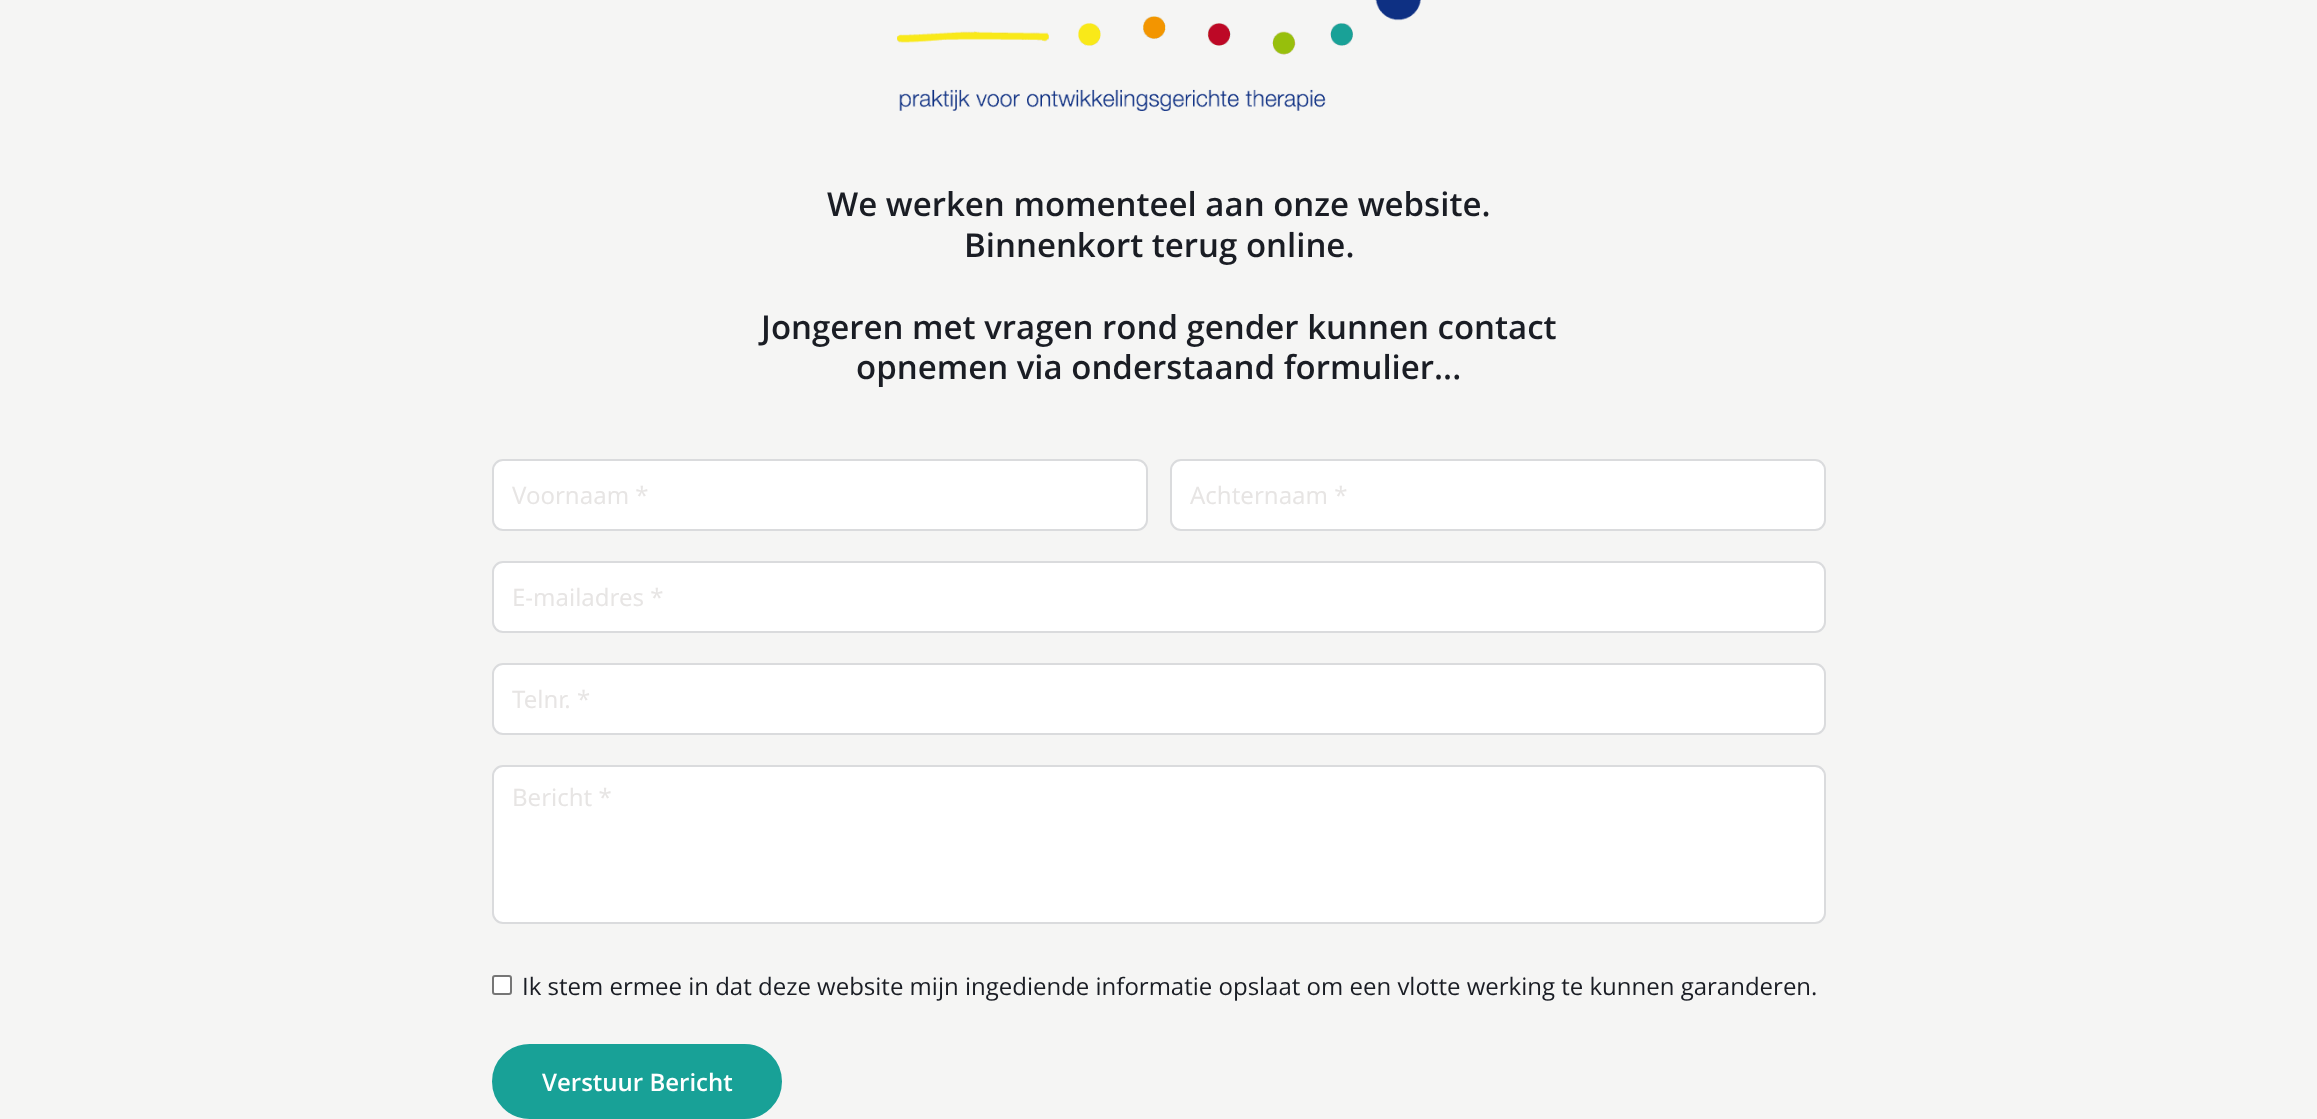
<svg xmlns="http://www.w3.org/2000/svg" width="2317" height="1119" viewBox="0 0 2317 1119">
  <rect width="100%" height="100%" fill="rgb(245,245,244)"/>
  <image x="897" y="0" width="524" height="111" href="pic1.png"/>
  <g font-family="Open Sans" font-size="33" font-weight="600" fill="rgb(26,29,36)">
    <text x="827" y="216">We werken momenteel aan onze website.</text>
    <text x="964" y="257">Binnenkort terug online.</text>
    <text x="761" y="339">Jongeren met vragen rond gender kunnen contact</text>
    <text x="856" y="379">opnemen via onderstaand formulier...</text>
  </g>
  <rect x="493" y="460" width="654" height="70" rx="10" fill="rgb(255,255,255)" stroke="rgb(218,219,221)" stroke-width="2"/>
  <text x="512" y="504" font-family="Noto Sans" font-size="24" fill="rgb(231,229,228)">Voornaam *</text>
  <rect x="1171" y="460" width="654" height="70" rx="10" fill="rgb(255,255,255)" stroke="rgb(218,219,221)" stroke-width="2"/>
  <text x="1190" y="504" font-family="Noto Sans" font-size="24" fill="rgb(231,229,228)">Achternaam *</text>
  <rect x="493" y="562" width="1332" height="70" rx="10" fill="rgb(255,255,255)" stroke="rgb(218,219,221)" stroke-width="2"/>
  <text x="512" y="606" font-family="Noto Sans" font-size="24" fill="rgb(231,229,228)">E-mailadres *</text>
  <rect x="493" y="664" width="1332" height="70" rx="10" fill="rgb(255,255,255)" stroke="rgb(218,219,221)" stroke-width="2"/>
  <text x="512" y="708" font-family="Noto Sans" font-size="24" fill="rgb(231,229,228)">Telnr. *</text>
  <rect x="493" y="766" width="1332" height="157" rx="10" fill="rgb(255,255,255)" stroke="rgb(218,219,221)" stroke-width="2"/>
  <text x="512" y="806" font-family="Noto Sans" font-size="24" fill="rgb(231,229,228)">Bericht *</text>
  <rect x="493" y="976" width="18" height="18" rx="2" fill="rgb(255,255,255)" stroke="rgb(118,118,118)" stroke-width="2"/>
  <text x="522" y="995" font-family="Open Sans" font-size="24" fill="rgb(26,29,36)">Ik stem ermee in dat deze website mijn ingediende informatie opslaat om een vlotte werking te kunnen garanderen.</text>
  <rect x="493" y="1045" width="288" height="73" rx="36.5" fill="rgb(24,161,151)" stroke="rgb(24,161,151)" stroke-width="2"/>
  <text x="542" y="1091" font-family="Open Sans" font-size="24" font-weight="600" fill="rgb(255,255,255)">Verstuur Bericht</text>
</svg>
